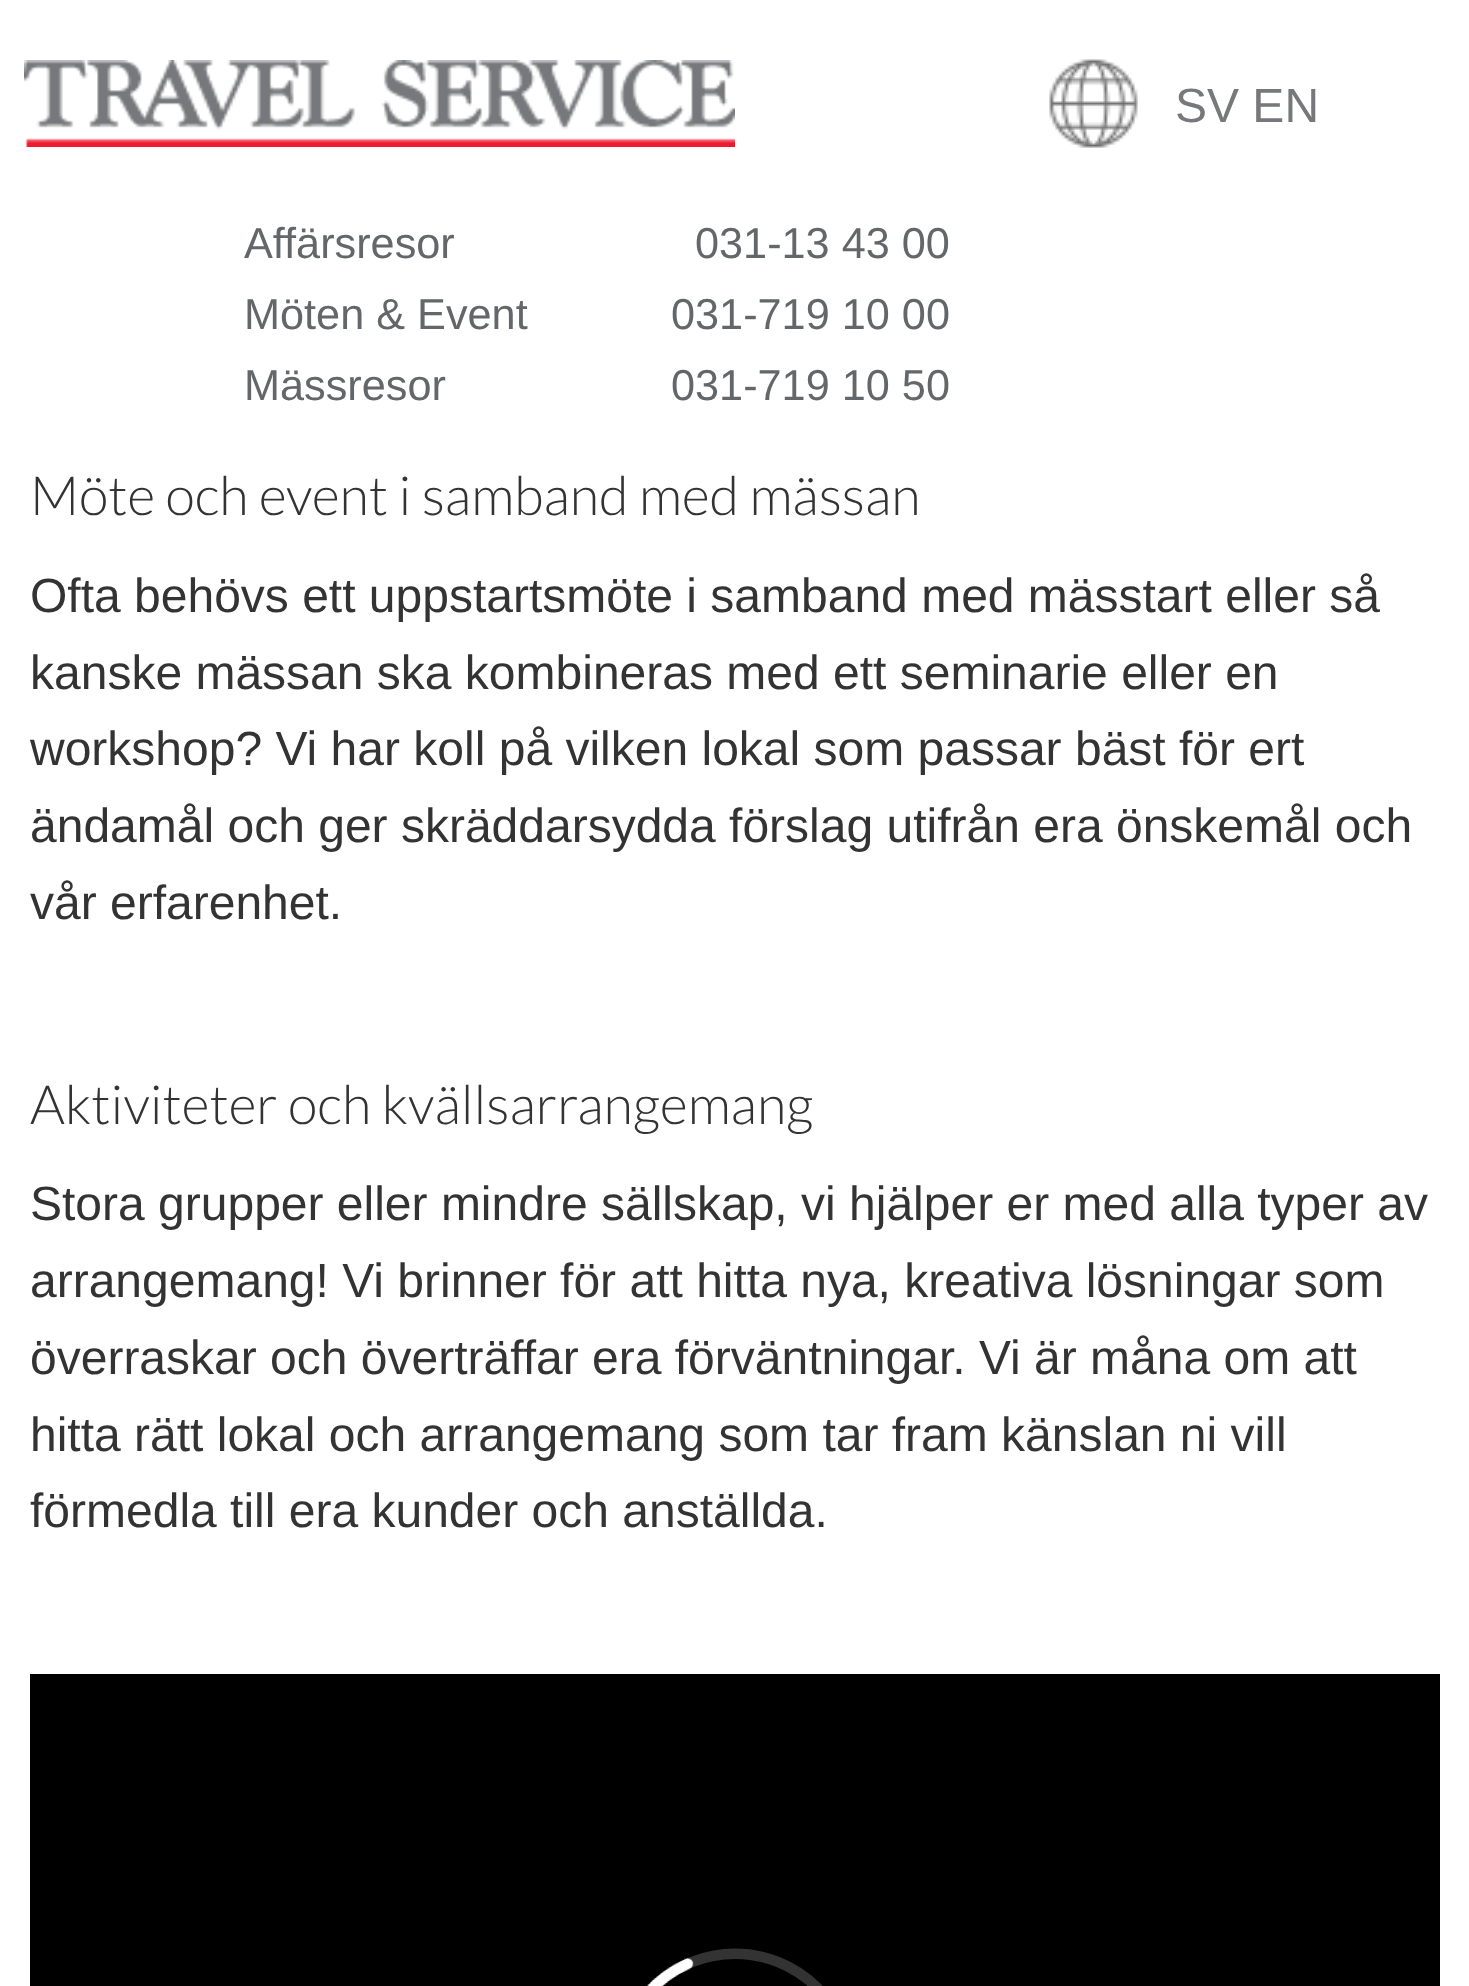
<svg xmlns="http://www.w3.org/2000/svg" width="1469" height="1986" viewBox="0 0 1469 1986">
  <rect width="100%" height="100%" fill="rgb(255,255,255)"/>
  <image x="24" y="60" width="711" height="87" href="pic1.png"/>
  <image x="1049" y="59" width="89" height="89" href="pic2.png"/>
  <text x="1175" y="122" font-family="Liberation Sans" font-size="48" fill="rgb(119,120,123)">SV EN</text>
  <g font-family="Liberation Sans" font-size="43.25" fill="rgb(100,103,106)">
    <text x="244" y="258">Affärsresor</text>
    <text x="695" y="258">031-13 43 00</text>
    <text x="244" y="329">Möten &amp; Event</text>
    <text x="671" y="329">031-719 10 00</text>
    <text x="244" y="400">Mässresor</text>
    <text x="671" y="400">031-719 10 50</text>
  </g>
  <text x="30" y="515" font-family="Lato" font-size="54" font-weight="300" fill="rgb(51,51,51)">Möte och event i samband med mässan</text>
  <g font-family="Liberation Sans" font-size="48" fill="rgb(51,51,51)">
    <text>
      <tspan x="30" y="612">Ofta behövs ett uppstartsmöte i samband med mässtart eller så</tspan>
      <tspan x="30" y="689">kanske mässan ska kombineras med ett seminarie eller en</tspan>
      <tspan x="30" y="765">workshop? Vi har koll på vilken lokal som passar bäst för ert</tspan>
      <tspan x="30" y="842">ändamål och ger skräddarsydda förslag utifrån era önskemål och</tspan>
      <tspan x="30" y="919">vår erfarenhet.</tspan>
    </text>
  </g>
  <text x="30" y="1124" font-family="Lato" font-size="54" font-weight="300" fill="rgb(51,51,51)">Aktiviteter och kvällsarrangemang</text>
  <g font-family="Liberation Sans" font-size="48" fill="rgb(51,51,51)">
    <text>
      <tspan x="30" y="1220">Stora grupper eller mindre sällskap, vi hjälper er med alla typer av</tspan>
      <tspan x="30" y="1297">arrangemang! Vi brinner för att hitta nya, kreativa lösningar som</tspan>
      <tspan x="30" y="1374">överraskar och överträffar era förväntningar. Vi är måna om att</tspan>
      <tspan x="30" y="1451">hitta rätt lokal och arrangemang som tar fram känslan ni vill</tspan>
      <tspan x="30" y="1527">förmedla till era kunder och anställda.</tspan>
    </text>
  </g>
  <image x="30" y="1674" width="1410" height="312" href="pic3.png"/>
</svg>
